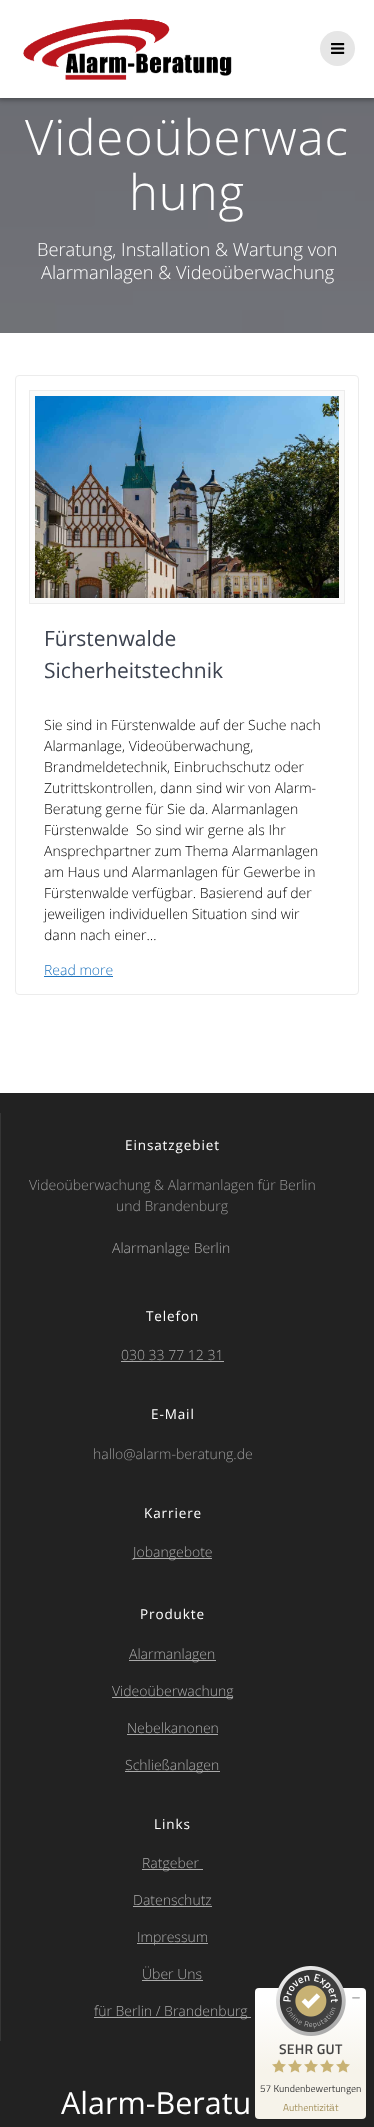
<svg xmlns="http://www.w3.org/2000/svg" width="374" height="2127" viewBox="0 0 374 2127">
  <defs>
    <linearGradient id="g1" gradientUnits="userSpaceOnUse" x1="311" y1="2119" x2="311" y2="1988"><stop offset="0.37" stop-color="rgb(246,243,234)"/><stop offset="0.9" stop-color="rgb(255,255,255)"/></linearGradient>
  </defs>
  <rect width="100%" height="100%" fill="rgb(255,255,255)"/>
  <image x="0" y="98" width="374" height="235" href="pic3.png"/>
  <rect x="-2" y="-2" width="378" height="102" fill="rgba(0,0,0,0.33)" filter="blur(2.5px)"/>
  <rect x="0" y="0" width="374" height="98" fill="rgb(255,255,255)"/>
  <image x="23" y="19" width="209" height="61" href="pic1.png"/>
  <circle cx="337.5" cy="48.5" r="17.5" fill="rgb(230,230,230)"/>
  <image x="331" y="43" width="14" height="11" href="pic2.png"/>
  <g font-family="Open Sans" font-size="49" font-weight="300" letter-spacing="0.9" fill="rgb(255,255,255)">
    <text x="25" y="155">Videoüberwac</text>
    <text x="129" y="210">hung</text>
  </g>
  <g font-family="Open Sans" font-size="18.25" font-weight="300" fill="rgb(255,255,255)">
    <text x="37" y="256">Beratung, Installation &amp; Wartung von</text>
    <text x="41" y="279">Alarmanlagen &amp; Videoüberwachung</text>
  </g>
  <rect x="15.5" y="375.5" width="343" height="619" rx="3.5" fill="none" stroke="rgb(236,236,236)"/>
  <rect x="29.5" y="390.5" width="315" height="213" fill="rgb(250,250,250)" stroke="rgb(236,236,236)"/>
  <image x="35" y="396" width="304" height="202" href="pic4.png"/>
  <g font-family="Open Sans" font-size="21" fill="rgb(60,66,79)">
    <text>
      <tspan x="44" y="646">Fürstenwalde</tspan>
      <tspan x="44" y="678">Sicherheitstechnik</tspan>
    </text>
  </g>
  <g font-family="Open Sans" font-size="14" font-weight="300" fill="rgb(0,0,0)">
    <text xml:space="preserve"><tspan x="44" y="730">Sie sind in Fürstenwalde auf der Suche nach</tspan><tspan x="44" y="751">Alarmanlage, Videoüberwachung,</tspan><tspan x="44" y="772">Brandmeldetechnik, Einbruchschutz oder</tspan><tspan x="44" y="793">Zutrittskontrollen, dann sind wir von Alarm-</tspan><tspan x="44" y="814">Beratung gerne für Sie da. Alarmanlagen</tspan><tspan x="44" y="835">Fürstenwalde  So sind wir gerne als Ihr</tspan><tspan x="44" y="856">Ansprechpartner zum Thema Alarmanlagen</tspan><tspan x="44" y="877">am Haus und Alarmanlagen für Gewerbe in</tspan><tspan x="44" y="898">Fürstenwalde verfügbar. Basierend auf der</tspan><tspan x="44" y="919">jeweiligen individuellen Situation sind wir</tspan><tspan x="44" y="940">dann nach einer…</tspan></text>
  </g>
  <text x="44" y="975" font-family="Open Sans" font-size="14" font-weight="300" fill="rgb(30,115,190)">Read more</text>
  <rect x="44" y="976" width="69" height="1" fill="rgb(30,115,190)"/>
  <rect x="0" y="1093" width="374" height="1034" fill="rgb(34,34,34)"/>
  <rect x="0" y="1113" width="1" height="928" fill="rgb(53,53,53)"/>
  <text x="125" y="1150" font-family="Open Sans" font-size="13.5" letter-spacing="0.9" fill="rgb(255,255,255)">Einsatzgebiet</text>
  <g font-family="Open Sans" font-size="14" font-weight="300" fill="rgb(153,153,153)">
    <text x="29" y="1190">Videoüberwachung &amp; Alarmanlagen für Berlin</text>
    <text x="116" y="1211">und Brandenburg</text>
  </g>
  <text x="112" y="1253" font-family="Open Sans" font-size="14" font-weight="300" fill="rgb(170,170,170)">Alarmanlage Berlin</text>
  <text x="146" y="1321" font-family="Open Sans" font-size="13.5" letter-spacing="0.9" fill="rgb(255,255,255)">Telefon</text>
  <text x="121" y="1360" font-family="Open Sans" font-size="14" font-weight="300" fill="rgb(170,170,170)">030 33 77 12 31</text>
  <rect x="121" y="1361" width="103" height="1" fill="rgb(170,170,170)"/>
  <text x="151" y="1419" font-family="Open Sans" font-size="13.5" letter-spacing="0.9" fill="rgb(255,255,255)">E-Mail</text>
  <text x="93" y="1459" font-family="Open Sans" font-size="14" font-weight="300" fill="rgb(153,153,153)">hallo@alarm-beratung.de</text>
  <text x="144" y="1518" font-family="Open Sans" font-size="13.5" letter-spacing="0.9" fill="rgb(255,255,255)">Karriere</text>
  <rect x="133" y="1558" width="79" height="1" fill="rgb(170,170,170)"/>
  <text x="133" y="1557" font-family="Open Sans" font-size="14" font-weight="300" fill="rgb(170,170,170)">Jobangebote</text>
  <text x="140" y="1619" font-family="Open Sans" font-size="13.5" letter-spacing="0.9" fill="rgb(255,255,255)">Produkte</text>
  <rect x="129" y="1660" width="87" height="1" fill="rgb(170,170,170)"/>
  <text x="129" y="1659" font-family="Open Sans" font-size="14" font-weight="300" fill="rgb(170,170,170)">Alarmanlagen</text>
  <rect x="112" y="1697" width="121" height="1" fill="rgb(170,170,170)"/>
  <g font-family="Open Sans" font-size="14" font-weight="300" fill="rgb(170,170,170)">
    <text x="112" y="1696">Videoüberwachung</text>
    <text x="127" y="1733">Nebelkanonen</text>
  </g>
  <rect x="127" y="1734" width="91" height="1" fill="rgb(170,170,170)"/>
  <rect x="125" y="1771" width="95" height="1" fill="rgb(170,170,170)"/>
  <text x="125" y="1770" font-family="Open Sans" font-size="14" font-weight="300" fill="rgb(170,170,170)">Schließanlagen</text>
  <text x="154" y="1829" font-family="Open Sans" font-size="13.5" letter-spacing="0.9" fill="rgb(255,255,255)">Links</text>
  <rect x="142" y="1869" width="61" height="1" fill="rgb(170,170,170)"/>
  <g font-family="Open Sans" font-size="14" font-weight="300" fill="rgb(170,170,170)">
    <text x="142" y="1868">Ratgeber</text>
    <text x="133" y="1905">Datenschutz</text>
  </g>
  <rect x="133" y="1906" width="79" height="1" fill="rgb(170,170,170)"/>
  <rect x="137" y="1943" width="71" height="1" fill="rgb(170,170,170)"/>
  <g font-family="Open Sans" font-size="14" font-weight="300" fill="rgb(170,170,170)">
    <text x="137" y="1942">Impressum</text>
    <text x="142" y="1979">Über Uns</text>
  </g>
  <rect x="142" y="1980" width="61" height="1" fill="rgb(170,170,170)"/>
  <rect x="94" y="2017" width="157" height="1" fill="rgb(170,170,170)"/>
  <text x="94" y="2016" font-family="Open Sans" font-size="14" font-weight="300" fill="rgb(170,170,170)">für Berlin / Brandenburg</text>
  <text x="61" y="2114" font-family="Open Sans" font-size="30.5" fill="rgb(255,255,255)">Alarm-Beratu</text>
  <rect x="255" y="1988" width="111" height="131" rx="4" fill="url(#g1)"/>
  <image x="276" y="1966" width="70" height="70" href="pic5.png"/>
  <image x="352" y="1997" width="8" height="2" href="pic6.png"/>
  <text x="279" y="2054" font-family="Titillium Web" font-size="14" font-weight="600" letter-spacing="0.25" fill="rgb(68,68,68)">SEHR GUT</text>
  <image x="272" y="2059" width="14" height="14" href="pic7.png"/>
  <image x="288" y="2059" width="14" height="14" href="pic7.png"/>
  <image x="304" y="2059" width="14" height="14" href="pic7.png"/>
  <image x="320" y="2059" width="14" height="14" href="pic7.png"/>
  <image x="336" y="2059" width="14" height="14" href="pic7.png"/>
  <text x="260" y="2092" font-family="Titillium Web" font-size="10" fill="rgb(68,68,68)">57 Kundenbewertungen</text>
  <text x="283" y="2111" font-family="Titillium Web" font-size="10" fill="rgb(167,149,99)">Authentizit</text>
  <text x="329" y="2111" font-family="Liberation Sans" font-size="10" fill="rgb(167,149,99)">ä</text>
  <text x="335" y="2111" font-family="Titillium Web" font-size="10" fill="rgb(167,149,99)">t</text>
</svg>
